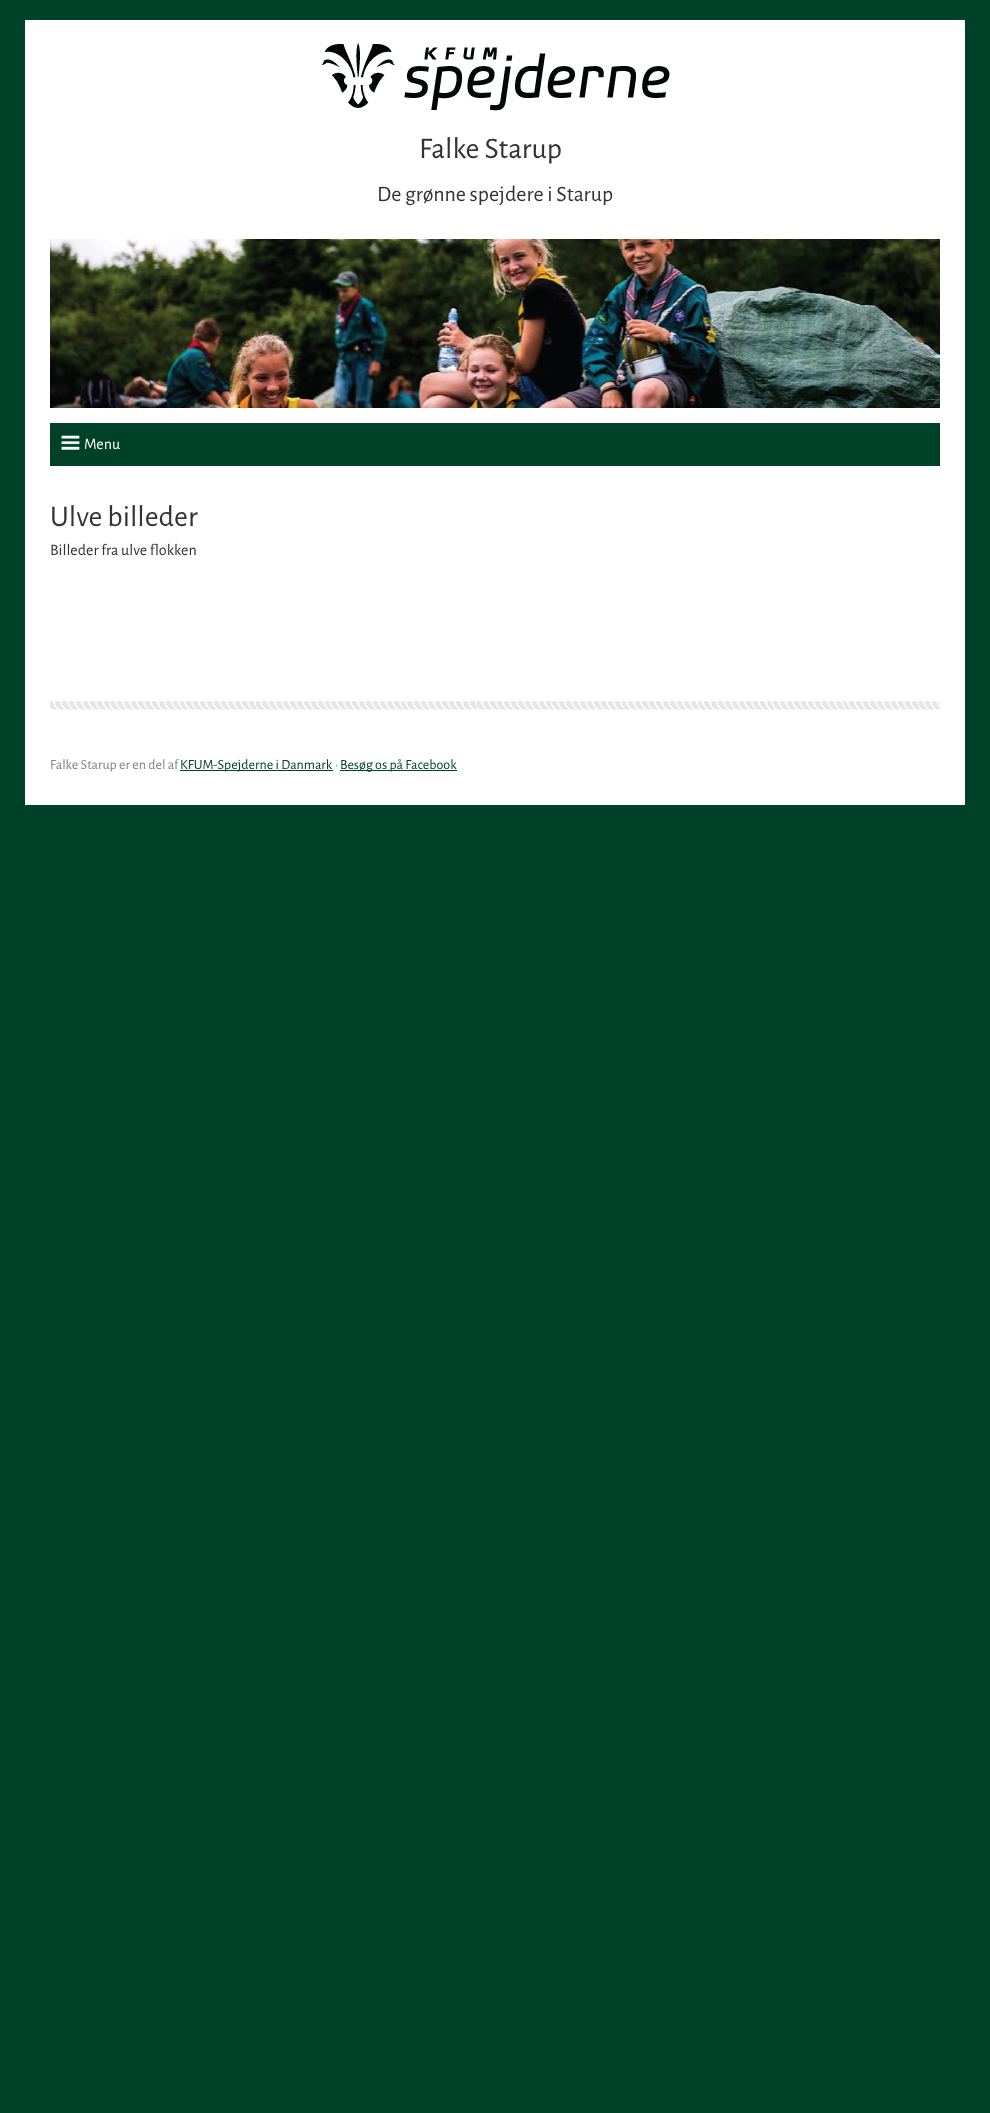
<svg xmlns="http://www.w3.org/2000/svg" width="990" height="2113" viewBox="0 0 990 2113">
  <rect width="100%" height="100%" fill="rgb(0,65,41)"/>
  <rect x="25" y="20" width="940" height="785" fill="rgb(255,255,255)"/>
  <image x="321" y="43" width="349" height="68" href="pic1.png"/>
  <text x="419" y="158" font-family="Alegreya Sans" font-size="30" fill="rgb(51,51,51)">Falke Starup</text>
  <text x="377" y="201" font-family="Alegreya Sans" font-size="22" fill="rgb(51,51,51)">De grønne spejdere i Starup</text>
  <image x="50" y="239" width="890" height="169" href="pic2.png"/>
  <rect x="50" y="423" width="890" height="43" fill="rgb(0,65,41)"/>
  <image x="61" y="435" width="19" height="15" href="pic3.png"/>
  <text x="84" y="449" font-family="Alegreya Sans" font-size="16" fill="rgb(255,255,255)">Menu</text>
  <text x="50" y="526" font-family="Alegreya Sans" font-size="30" fill="rgb(51,51,51)">Ulve billeder</text>
  <text x="50" y="555" font-family="Alegreya Sans" font-size="16" fill="rgb(51,51,51)">Billeder fra ulve flokken</text>
  <image x="50" y="701" width="890" height="9" href="pic4.png"/>
  <text x="50" y="769" font-family="Alegreya Sans" font-size="14" fill="rgb(128,130,133)">Falke Starup er en del af</text>
  <rect x="180" y="770" width="153" height="1" fill="rgb(0,65,41)"/>
  <text x="180" y="769" font-family="Alegreya Sans" font-size="14" fill="rgb(0,65,41)">KFUM-Spejderne i Danmark</text>
  <text x="335" y="769" font-family="Alegreya Sans" font-size="14" fill="rgb(128,130,133)">·</text>
  <rect x="340" y="770" width="117" height="1" fill="rgb(0,65,41)"/>
  <text x="340" y="769" font-family="Alegreya Sans" font-size="14" fill="rgb(0,65,41)">Besøg os på Facebook</text>
</svg>
